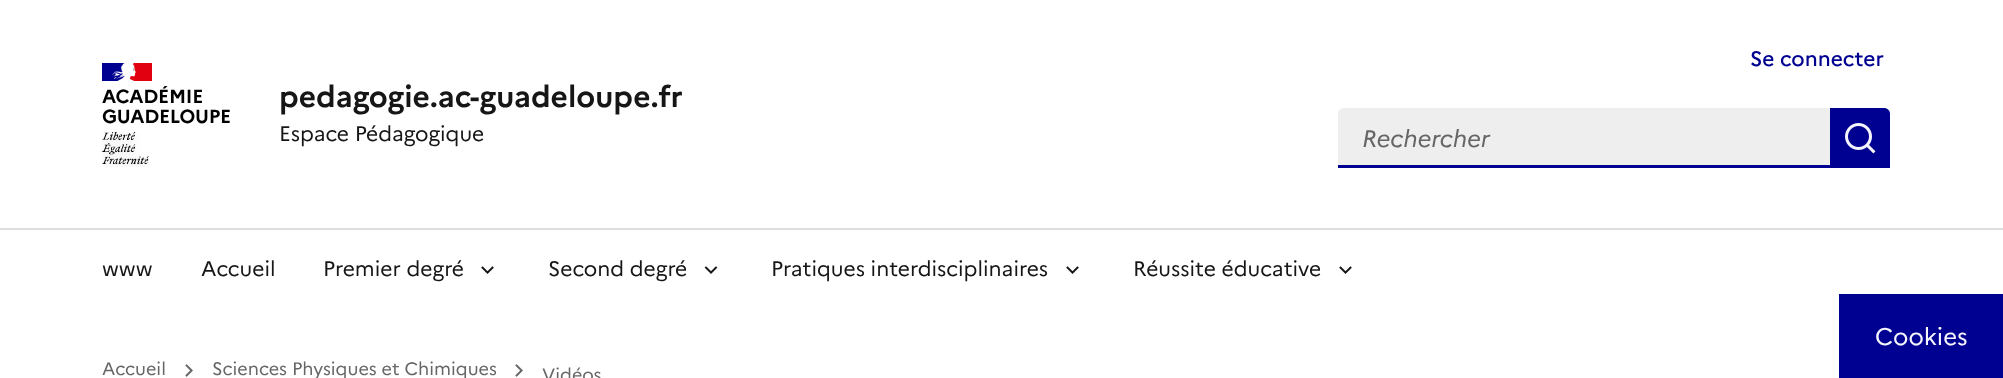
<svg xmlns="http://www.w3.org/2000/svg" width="2003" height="378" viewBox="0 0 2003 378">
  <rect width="100%" height="100%" fill="rgb(255,255,255)"/>
  <rect x="102" y="63" width="23" height="18" fill="rgb(0,0,145)"/>
  <rect x="129" y="63" width="23" height="18" fill="rgb(225,0,15)"/>
  <image x="112" y="63" width="24" height="18" href="pic1.png"/>
  <g font-family="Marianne" font-size="19" font-weight="bold" letter-spacing="-0.25" fill="rgb(0,0,0)">
    <text>
      <tspan x="102" y="103">ACADÉMIE</tspan>
      <tspan x="102" y="123">GUADELOUPE</tspan>
    </text>
  </g>
  <image x="102" y="132" width="47" height="35" href="pic2.png"/>
  <text x="279" y="107" font-family="Marianne" font-size="30" font-weight="bold" fill="rgb(22,22,22)">pedagogie.ac-guadeloupe.fr</text>
  <text x="279" y="141" font-family="Marianne" font-size="21" fill="rgb(22,22,22)">Espace Pédagogique</text>
  <text x="1750" y="66" font-family="Marianne" font-size="21" font-weight="500" fill="rgb(0,0,145)">Se connecter</text>
  <path d="M1344 108H1830V168H1338V114C1338 110.5 1340.5 108 1344 108Z" fill="rgb(238,238,238)"/>
  <rect x="1338" y="165" width="492" height="3" fill="rgb(0,0,145)"/>
  <text x="1362" y="147" font-family="Marianne" font-size="24" font-style="italic" fill="rgb(102,102,102)">Rechercher</text>
  <path d="M1830 108H1884C1887.5 108 1890 110.5 1890 114V168H1830Z" fill="rgb(0,0,145)"/>
  <image x="1845" y="123" width="31" height="31" href="pic3.png"/>
  <rect x="0" y="228" width="2003" height="2" fill="rgb(221,221,221)"/>
  <g font-family="Marianne" font-size="21" fill="rgb(22,22,22)">
    <text x="102" y="276">www</text>
    <text x="201" y="276">Accueil</text>
    <text x="323" y="276">Premier degré</text>
  </g>
  <image x="481" y="266" width="13" height="8" href="pic4.png"/>
  <text x="548" y="276" font-family="Marianne" font-size="21" fill="rgb(22,22,22)">Second degré</text>
  <image x="704" y="266" width="14" height="8" href="pic5.png"/>
  <text x="771" y="276" font-family="Marianne" font-size="21" fill="rgb(22,22,22)">Pratiques interdisciplinaires</text>
  <image x="1066" y="266" width="13" height="8" href="pic4.png"/>
  <text x="1133" y="276" font-family="Marianne" font-size="21" fill="rgb(22,22,22)">Réussite éducative</text>
  <image x="1339" y="266" width="13" height="8" href="pic4.png"/>
  <text x="102" y="375" font-family="Marianne" font-size="18" fill="rgb(102,102,102)">Accueil</text>
  <image x="185" y="364" width="8" height="13" href="pic6.png"/>
  <text x="212" y="375" font-family="Marianne" font-size="18" fill="rgb(102,102,102)">Sciences Physiques et Chimiques</text>
  <image x="515" y="364" width="8" height="13" href="pic6.png"/>
  <text x="542" y="381" font-family="Marianne" font-size="18" fill="rgb(102,102,102)">Vidéos</text>
  <rect x="1839" y="294" width="164" height="84" fill="rgb(0,0,145)"/>
  <text x="1875" y="345" font-family="Marianne" font-size="24" fill="rgb(245,245,254)">Cookies</text>
</svg>
